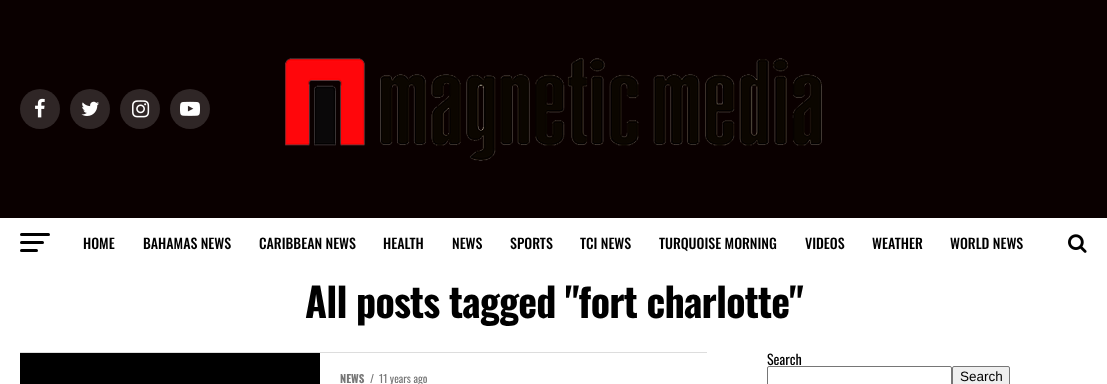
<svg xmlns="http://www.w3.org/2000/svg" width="1107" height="384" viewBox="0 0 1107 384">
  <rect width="100%" height="100%" fill="rgb(255,255,255)"/>
  <rect x="0" y="0" width="1107" height="218" fill="rgb(10,0,0)"/>
  <circle cx="40" cy="109" r="20" fill="rgb(47,38,38)"/>
  <image x="35" y="98" width="10" height="20" href="pic1.png"/>
  <circle cx="90" cy="109" r="20" fill="rgb(47,38,38)"/>
  <image x="81" y="101" width="18" height="15" href="pic2.png"/>
  <circle cx="140" cy="109" r="20" fill="rgb(47,38,38)"/>
  <image x="132" y="100" width="18" height="18" href="pic3.png"/>
  <circle cx="190" cy="109" r="20" fill="rgb(47,38,38)"/>
  <image x="180" y="101" width="20" height="15" href="pic4.png"/>
  <image x="285" y="58" width="537" height="103" href="pic5.png"/>
  <rect x="20" y="233" width="30" height="3" rx="1.5" fill="rgb(0,0,0)"/>
  <rect x="20" y="241" width="24" height="3" rx="1.5" fill="rgb(0,0,0)"/>
  <rect x="20" y="249" width="18" height="3" rx="1.5" fill="rgb(0,0,0)"/>
  <g font-family="Oswald" font-size="14" font-weight="500" fill="rgb(0,0,0)">
    <text x="83" y="249">HOME</text>
    <text x="143" y="249">BAHAMAS NEWS</text>
    <text x="259" y="249">CARIBBEAN NEWS</text>
    <text x="383" y="249">HEALTH</text>
    <text x="452" y="249">NEWS</text>
    <text x="510" y="249">SPORTS</text>
    <text x="580" y="249">TCI NEWS</text>
    <text x="659" y="249">TURQUOISE MORNING</text>
    <text x="805" y="249">VIDEOS</text>
    <text x="872" y="249">WEATHER</text>
    <text x="950" y="249">WORLD NEWS</text>
  </g>
  <image x="1068" y="234" width="19" height="19" href="pic6.png"/>
  <text x="305" y="318" font-family="Oswald" font-size="40" font-weight="bold" letter-spacing="-0.8" fill="rgb(0,0,0)">All posts tagged "fort charlotte"</text>
  <rect x="20" y="352" width="687" height="1" fill="rgb(221,221,221)"/>
  <rect x="20" y="353" width="300" height="31" fill="rgb(0,0,0)"/>
  <text x="340" y="383" font-family="Oswald" font-size="11" font-weight="bold" fill="rgb(119,119,119)">NEWS</text>
  <g font-family="Oswald" font-size="11" fill="rgb(119,119,119)">
    <text x="370" y="383">/</text>
    <text x="379" y="383">11 years ago</text>
  </g>
  <text x="767" y="365" font-family="Oswald" font-size="14" fill="rgb(0,0,0)">Search</text>
  <rect x="767.5" y="366.5" width="184" height="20" rx="1.5" fill="none" stroke="rgb(118,118,118)"/>
  <rect x="952.5" y="366.5" width="57" height="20" rx="1.5" fill="rgb(239,239,239)" stroke="rgb(118,118,118)"/>
  <text x="960" y="381" font-family="Liberation Sans" font-size="13.5" fill="rgb(0,0,0)">Search</text>
</svg>
